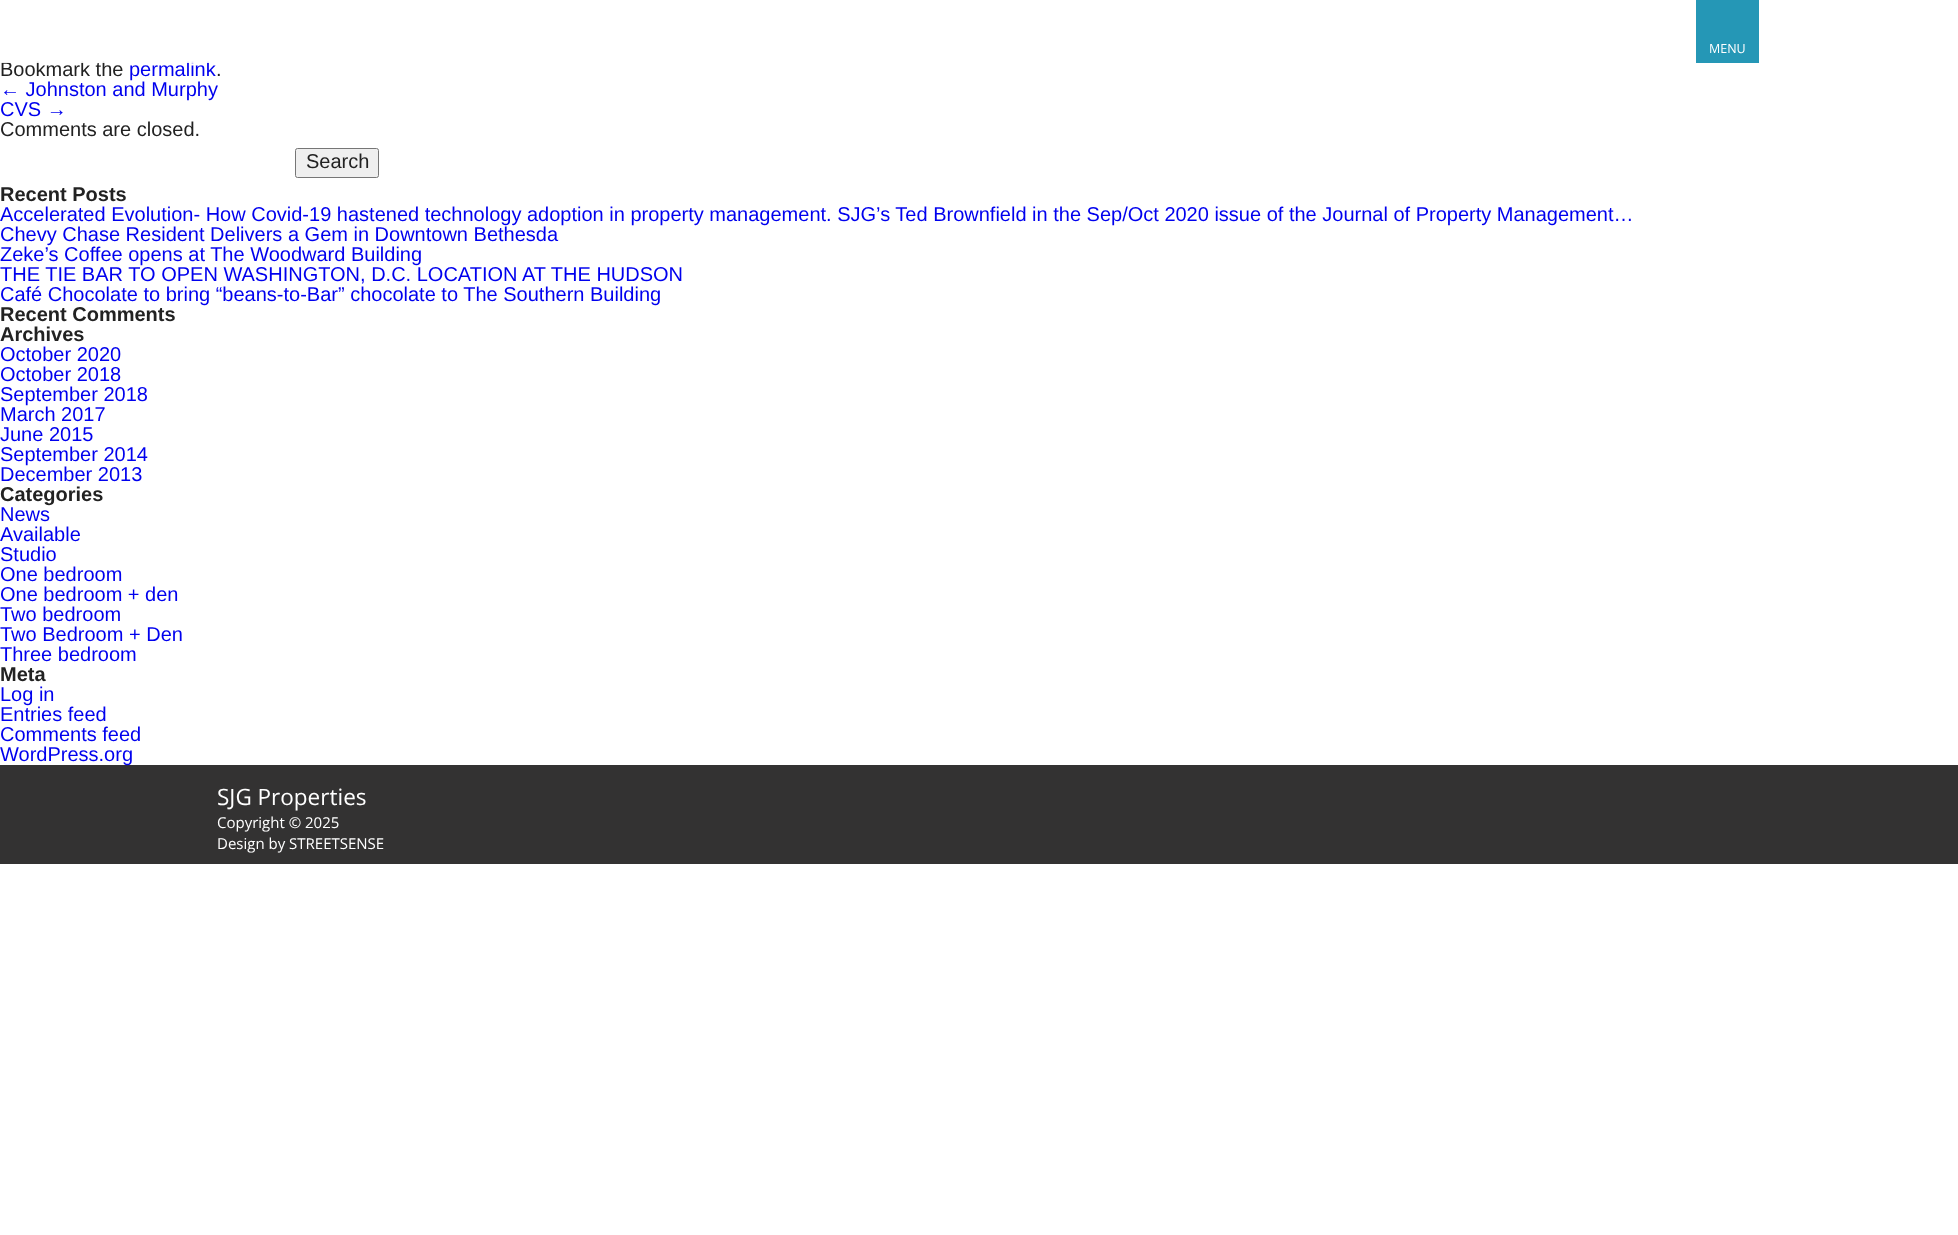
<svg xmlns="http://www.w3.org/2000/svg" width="1958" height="1235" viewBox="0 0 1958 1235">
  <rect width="100%" height="100%" fill="rgb(255,255,255)"/>
  <text x="0" y="76" font-family="Liberation Sans" font-size="20" fill="rgb(34,34,34)">Bookmark the</text>
  <text x="129" y="76" font-family="Liberation Sans" font-size="20" fill="rgb(0,0,238)">permalink</text>
  <rect x="1" y="61" width="208" height="2" fill="rgba(255,255,255,0.9)"/>
  <rect x="1696" y="0" width="63" height="63" fill="rgb(37,151,182)"/>
  <text x="1709" y="53" font-family="Open Sans" font-size="12.5" fill="rgb(255,255,255)">MENU</text>
  <text x="216" y="76" font-family="Liberation Sans" font-size="20" fill="rgb(34,34,34)">.</text>
  <g font-family="Liberation Sans" font-size="20" fill="rgb(0,0,238)">
    <text>
      <tspan x="0" y="96">← Johnston and Murphy</tspan>
      <tspan x="0" y="116">CVS →</tspan>
    </text>
  </g>
  <text x="0" y="136" font-family="Liberation Sans" font-size="20" fill="rgb(34,34,34)">Comments are closed.</text>
  <rect x="295.5" y="148.5" width="83" height="29" rx="2" fill="rgb(239,239,239)" stroke="rgb(118,118,118)"/>
  <text x="306" y="168" font-family="Liberation Sans" font-size="20" fill="rgb(34,34,34)">Search</text>
  <text x="0" y="201" font-family="Liberation Sans" font-size="20" font-weight="bold" fill="rgb(34,34,34)">Recent Posts</text>
  <g font-family="Liberation Sans" font-size="20" fill="rgb(0,0,238)">
    <text>
      <tspan x="0" y="221">Accelerated Evolution- How Covid-19 hastened technology adoption in property management. SJG’s Ted Brownfield in the Sep/Oct 2020 issue of the Journal of Property Management…</tspan>
      <tspan x="0" y="241">Chevy Chase Resident Delivers a Gem in Downtown Bethesda</tspan>
      <tspan x="0" y="261">Zeke’s Coffee opens at The Woodward Building</tspan>
      <tspan x="0" y="281">THE TIE BAR TO OPEN WASHINGTON, D.C. LOCATION AT THE HUDSON</tspan>
      <tspan x="0" y="301">Café Chocolate to bring “beans-to-Bar” chocolate to The Southern Building</tspan>
    </text>
  </g>
  <g font-family="Liberation Sans" font-size="20" font-weight="bold" fill="rgb(34,34,34)">
    <text>
      <tspan x="0" y="321">Recent Comments</tspan>
      <tspan x="0" y="341">Archives</tspan>
    </text>
  </g>
  <g font-family="Liberation Sans" font-size="20" fill="rgb(0,0,238)">
    <text>
      <tspan x="0" y="361">October 2020</tspan>
      <tspan x="0" y="381">October 2018</tspan>
      <tspan x="0" y="401">September 2018</tspan>
      <tspan x="0" y="421">March 2017</tspan>
      <tspan x="0" y="441">June 2015</tspan>
      <tspan x="0" y="461">September 2014</tspan>
      <tspan x="0" y="481">December 2013</tspan>
    </text>
  </g>
  <text x="0" y="501" font-family="Liberation Sans" font-size="20" font-weight="bold" fill="rgb(34,34,34)">Categories</text>
  <g font-family="Liberation Sans" font-size="20" fill="rgb(0,0,238)">
    <text>
      <tspan x="0" y="521">News</tspan>
      <tspan x="0" y="541">Available</tspan>
      <tspan x="0" y="561">Studio</tspan>
      <tspan x="0" y="581">One bedroom</tspan>
      <tspan x="0" y="601">One bedroom + den</tspan>
      <tspan x="0" y="621">Two bedroom</tspan>
      <tspan x="0" y="641">Two Bedroom + Den</tspan>
      <tspan x="0" y="661">Three bedroom</tspan>
    </text>
  </g>
  <text x="0" y="681" font-family="Liberation Sans" font-size="20" font-weight="bold" fill="rgb(34,34,34)">Meta</text>
  <g font-family="Liberation Sans" font-size="20" fill="rgb(0,0,238)">
    <text>
      <tspan x="0" y="701">Log in</tspan>
      <tspan x="0" y="721">Entries feed</tspan>
      <tspan x="0" y="741">Comments feed</tspan>
    </text>
  </g>
  <rect x="0" y="765" width="1958" height="99" fill="rgb(51,50,50)"/>
  <text x="0" y="761" font-family="Liberation Sans" font-size="20" fill="rgb(0,0,238)">WordPress.org</text>
  <text x="217" y="805" font-family="Open Sans" font-size="22.5" fill="rgb(255,255,255)">SJG Properties</text>
  <g font-family="Open Sans" font-size="15" fill="rgb(255,255,255)">
    <text>
      <tspan x="217" y="828">Copyright © 2025</tspan>
      <tspan x="217" y="849">Design by STREETSENSE</tspan>
    </text>
  </g>
</svg>
